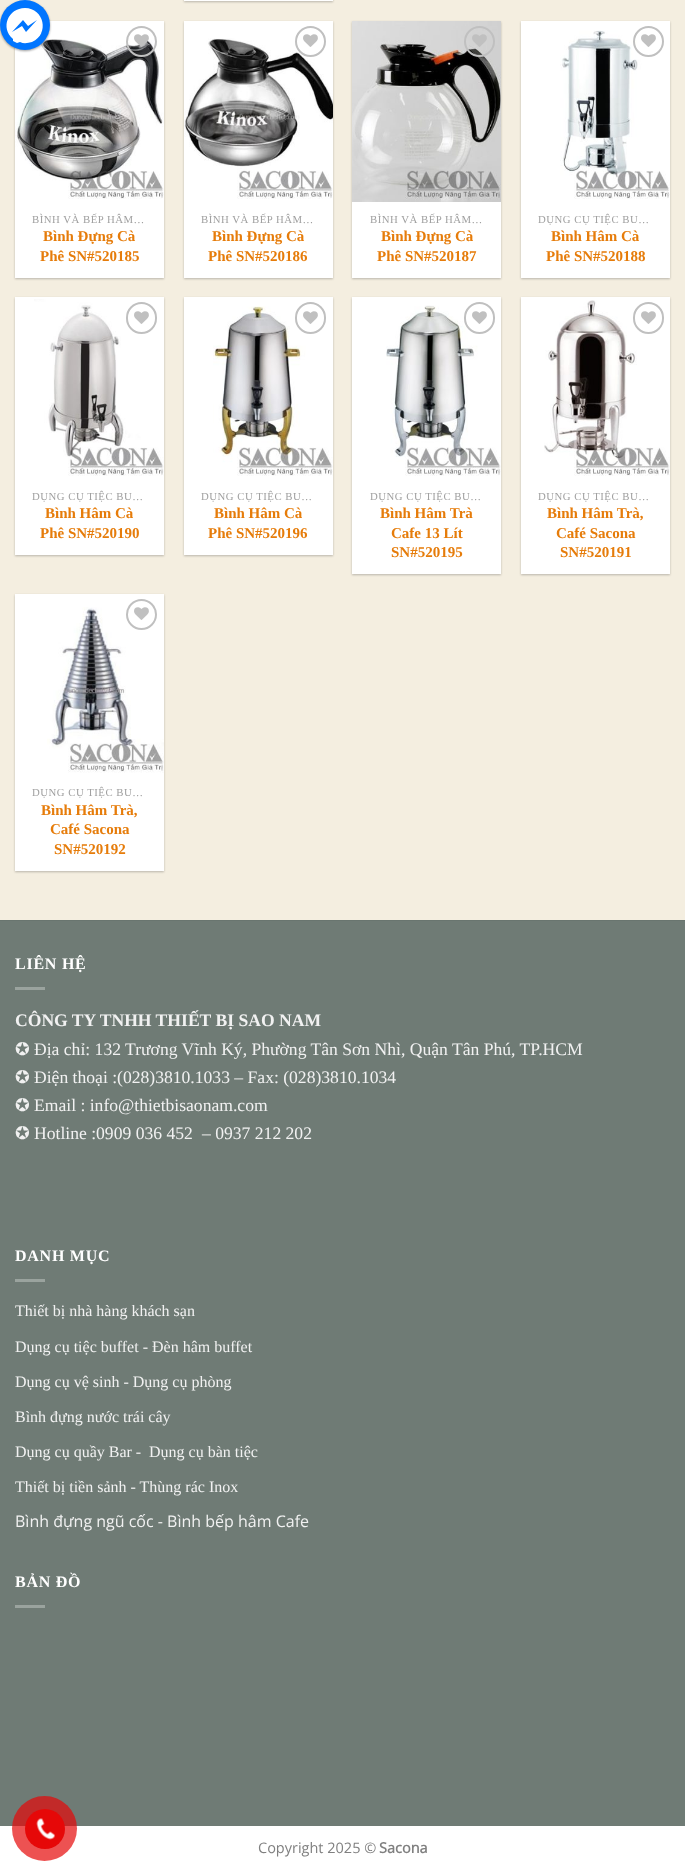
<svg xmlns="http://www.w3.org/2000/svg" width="685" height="1874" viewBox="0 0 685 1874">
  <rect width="100%" height="100%" fill="rgb(244,238,224)"/>
  <rect x="15" y="22" width="149" height="257" fill="rgba(0,0,0,0.24)" filter="blur(1px)"/>
  <rect x="15" y="21" width="149" height="257" fill="rgb(255,255,255)"/>
  <image x="15" y="39" width="149" height="160" href="pic2.png"/>
  <rect x="0" y="1" width="50" height="50" rx="25" fill="rgba(0,0,0,0.4)" filter="blur(1px)"/>
  <circle cx="25" cy="25" r="25" fill="rgb(0,117,255)"/>
  <path d="M25 8C44 8 50 34 32 42C28 43 24 44 20 42L17 43L13 41V39C0 28 8 8 25 8ZM26 32L22 26L12 32L23 20L28 26L37 20Z" fill="rgb(255,255,255)" fill-rule="evenodd"/>
  <rect x="184" y="-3" width="149" height="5" fill="rgba(0,0,0,0.24)" filter="blur(1px)"/>
  <rect x="184" y="0" width="149" height="1" fill="rgb(255,255,255)"/>
  <circle cx="141.5" cy="41.5" r="14.5" fill="none" stroke="rgb(192,192,192)" stroke-width="2"/>
  <image x="134" y="34" width="15" height="13" href="pic1.png"/>
  <text x="32" y="223" font-family="Liberation Serif" font-size="10.75" letter-spacing="0.5" fill="rgb(160,160,160)">BÌNH VÀ BẾP HÂM…</text>
  <g font-family="Liberation Serif" font-size="15" font-weight="bold" fill="rgb(230,124,10)">
    <text x="43" y="241">Bình Đựng Cà</text>
    <text x="40" y="261">Phê SN#520185</text>
  </g>
  <rect x="184" y="22" width="149" height="257" fill="rgba(0,0,0,0.24)" filter="blur(1px)"/>
  <rect x="184" y="21" width="149" height="257" fill="rgb(255,255,255)"/>
  <image x="184" y="38" width="149" height="161" href="pic4.png"/>
  <circle cx="310.5" cy="41.5" r="14.5" fill="none" stroke="rgb(192,192,192)" stroke-width="2"/>
  <image x="303" y="34" width="15" height="13" href="pic3.png"/>
  <text x="201" y="223" font-family="Liberation Serif" font-size="10.75" letter-spacing="0.5" fill="rgb(160,160,160)">BÌNH VÀ BẾP HÂM…</text>
  <g font-family="Liberation Serif" font-size="15" font-weight="bold" fill="rgb(230,124,10)">
    <text x="212" y="241">Bình Đựng Cà</text>
    <text x="208" y="261">Phê SN#520186</text>
  </g>
  <rect x="352" y="22" width="149" height="257" fill="rgba(0,0,0,0.24)" filter="blur(1px)"/>
  <rect x="352" y="202" width="149" height="76" fill="rgb(255,255,255)"/>
  <image x="352" y="21" width="149" height="181" href="pic5.png"/>
  <circle cx="479.5" cy="41.5" r="14.5" fill="none" stroke="rgb(192,192,192)" stroke-width="2"/>
  <image x="472" y="34" width="15" height="13" href="pic6.png"/>
  <text x="370" y="223" font-family="Liberation Serif" font-size="10.75" letter-spacing="0.5" fill="rgb(160,160,160)">BÌNH VÀ BẾP HÂM…</text>
  <g font-family="Liberation Serif" font-size="15" font-weight="bold" fill="rgb(230,124,10)">
    <text x="381" y="241">Bình Đựng Cà</text>
    <text x="377" y="261">Phê SN#520187</text>
  </g>
  <rect x="521" y="22" width="149" height="257" fill="rgba(0,0,0,0.24)" filter="blur(1px)"/>
  <rect x="521" y="21" width="149" height="257" fill="rgb(255,255,255)"/>
  <image x="560" y="30" width="110" height="169" href="pic7.png"/>
  <circle cx="648.5" cy="41.5" r="14.5" fill="none" stroke="rgb(192,192,192)" stroke-width="2"/>
  <image x="641" y="34" width="15" height="13" href="pic3.png"/>
  <text x="538" y="223" font-family="Liberation Serif" font-size="10.75" letter-spacing="0.5" fill="rgb(160,160,160)">DỤNG CỤ TIỆC BU…</text>
  <g font-family="Liberation Serif" font-size="15" font-weight="bold" fill="rgb(230,124,10)">
    <text x="551" y="241">Bình Hâm Cà</text>
    <text x="546" y="261">Phê SN#520188</text>
  </g>
  <rect x="15" y="298" width="149" height="258" fill="rgba(0,0,0,0.24)" filter="blur(1px)"/>
  <rect x="15" y="297" width="149" height="258" fill="rgb(255,255,255)"/>
  <image x="34" y="299" width="130" height="177" href="pic8.png"/>
  <rect x="127" y="303" width="29" height="30" rx="14.5" fill="none" stroke="rgb(192,192,192)" stroke-width="2"/>
  <image x="134" y="311" width="15" height="13" href="pic3.png"/>
  <text x="32" y="500" font-family="Liberation Serif" font-size="10.75" letter-spacing="0.5" fill="rgb(160,160,160)">DỤNG CỤ TIỆC BU…</text>
  <g font-family="Liberation Serif" font-size="15" font-weight="bold" fill="rgb(230,124,10)">
    <text x="45" y="518">Bình Hâm Cà</text>
    <text x="40" y="538">Phê SN#520190</text>
  </g>
  <rect x="184" y="298" width="149" height="258" fill="rgba(0,0,0,0.24)" filter="blur(1px)"/>
  <rect x="184" y="297" width="149" height="258" fill="rgb(255,255,255)"/>
  <image x="213" y="306" width="120" height="170" href="pic9.png"/>
  <rect x="296" y="303" width="29" height="30" rx="14.5" fill="none" stroke="rgb(192,192,192)" stroke-width="2"/>
  <image x="303" y="311" width="15" height="13" href="pic3.png"/>
  <text x="201" y="500" font-family="Liberation Serif" font-size="10.75" letter-spacing="0.5" fill="rgb(160,160,160)">DỤNG CỤ TIỆC BU…</text>
  <g font-family="Liberation Serif" font-size="15" font-weight="bold" fill="rgb(230,124,10)">
    <text x="214" y="518">Bình Hâm Cà</text>
    <text x="208" y="538">Phê SN#520196</text>
  </g>
  <rect x="352" y="298" width="149" height="277" fill="rgba(0,0,0,0.24)" filter="blur(1px)"/>
  <rect x="352" y="297" width="149" height="277" fill="rgb(255,255,255)"/>
  <image x="386" y="305" width="115" height="171" href="pic10.png"/>
  <rect x="465" y="303" width="29" height="30" rx="14.5" fill="none" stroke="rgb(192,192,192)" stroke-width="2"/>
  <image x="472" y="311" width="15" height="13" href="pic3.png"/>
  <text x="370" y="500" font-family="Liberation Serif" font-size="10.75" letter-spacing="0.5" fill="rgb(160,160,160)">DỤNG CỤ TIỆC BU…</text>
  <g font-family="Liberation Serif" font-size="15" font-weight="bold" fill="rgb(230,124,10)">
    <text x="380" y="518">Bình Hâm Trà</text>
    <text>
      <tspan x="391" y="538">Cafe 13 Lít</tspan>
      <tspan x="391" y="557">SN#520195</tspan>
    </text>
  </g>
  <rect x="521" y="298" width="149" height="277" fill="rgba(0,0,0,0.24)" filter="blur(1px)"/>
  <rect x="521" y="297" width="149" height="277" fill="rgb(255,255,255)"/>
  <image x="544" y="300" width="126" height="176" href="pic11.png"/>
  <rect x="634" y="303" width="29" height="30" rx="14.5" fill="none" stroke="rgb(192,192,192)" stroke-width="2"/>
  <image x="641" y="311" width="15" height="13" href="pic3.png"/>
  <text x="538" y="500" font-family="Liberation Serif" font-size="10.75" letter-spacing="0.5" fill="rgb(160,160,160)">DỤNG CỤ TIỆC BU…</text>
  <g font-family="Liberation Serif" font-size="15" font-weight="bold" fill="rgb(230,124,10)">
    <text x="547" y="518">Bình Hâm Trà,</text>
    <text x="556" y="538">Café Sacona</text>
    <text x="560" y="557">SN#520191</text>
  </g>
  <rect x="15" y="595" width="149" height="277" fill="rgba(0,0,0,0.24)" filter="blur(1px)"/>
  <rect x="15" y="594" width="149" height="277" fill="rgb(255,255,255)"/>
  <image x="47" y="607" width="117" height="166" href="pic12.png"/>
  <circle cx="141.5" cy="614.5" r="14.5" fill="none" stroke="rgb(192,192,192)" stroke-width="2"/>
  <image x="134" y="607" width="15" height="13" href="pic3.png"/>
  <text x="32" y="796" font-family="Liberation Serif" font-size="10.75" letter-spacing="0.5" fill="rgb(160,160,160)">DỤNG CỤ TIỆC BU…</text>
  <g font-family="Liberation Serif" font-size="15" font-weight="bold" fill="rgb(230,124,10)">
    <text x="41" y="815">Bình Hâm Trà,</text>
    <text x="50" y="834">Café Sacona</text>
    <text x="54" y="854">SN#520192</text>
  </g>
  <rect x="0" y="921" width="685" height="905" fill="rgb(111,123,117)"/>
  <rect x="0" y="920" width="685" height="1" fill="rgb(105,117,111)"/>
  <text x="15" y="969" font-family="Liberation Serif" font-size="16" font-weight="bold" letter-spacing="0.75" fill="rgb(255,255,255)">LIÊN HỆ</text>
  <rect x="15" y="987" width="30" height="3" fill="rgb(154,163,158)"/>
  <text x="15" y="1026" font-family="Liberation Serif" font-size="17.6" font-weight="bold" fill="rgb(241,241,241)">CÔNG TY TNHH THIẾT BỊ SAO NAM</text>
  <text x="15" y="1055" font-family="DejaVu Sans" font-size="17.6" fill="rgb(241,241,241)">✪</text>
  <text x="34" y="1055" font-family="Liberation Serif" font-size="17.6" fill="rgb(241,241,241)">Địa chỉ: 132 Trương Vĩnh Ký, Phường Tân Sơn Nhì, Quận Tân Phú, TP.HCM</text>
  <text x="15" y="1083" font-family="DejaVu Sans" font-size="17.6" fill="rgb(241,241,241)">✪</text>
  <text x="34" y="1083" font-family="Liberation Serif" font-size="17.6" fill="rgb(241,241,241)">Điện thoại :(028)3810.1033 – Fax: (028)3810.1034</text>
  <text x="15" y="1111" font-family="DejaVu Sans" font-size="17.6" fill="rgb(241,241,241)">✪</text>
  <text x="34" y="1111" font-family="Liberation Serif" font-size="17.6" fill="rgb(241,241,241)">Email : info@thietbisaonam.com</text>
  <text x="15" y="1139" font-family="DejaVu Sans" font-size="17.6" fill="rgb(241,241,241)">✪</text>
  <g font-family="Liberation Serif" font-size="17.6" fill="rgb(241,241,241)">
    <text x="34" y="1139">Hotline :0909 036 452</text>
    <text x="202" y="1139">– 0937 212 202</text>
  </g>
  <text x="15" y="1261" font-family="Liberation Serif" font-size="16" font-weight="bold" letter-spacing="0.75" fill="rgb(255,255,255)">DANH MỤC</text>
  <rect x="15" y="1279" width="30" height="3" fill="rgb(154,163,158)"/>
  <g font-family="Liberation Serif" font-size="16" fill="rgb(241,241,241)">
    <text x="15" y="1316">Thiết bị nhà hàng khách sạn</text>
    <text x="15" y="1352">Dụng cụ tiệc buffet - Đèn hâm buffet</text>
    <text x="15" y="1387">Dụng cụ vệ sinh - Dụng cụ phòng</text>
    <text x="15" y="1422">Bình đựng nước trái cây</text>
    <text x="15" y="1457">Dụng cụ quầy Bar -</text>
    <text x="149" y="1457">Dụng cụ bàn tiệc</text>
    <text x="15" y="1492">Thiết bị tiền sảnh - Thùng rác Inox</text>
  </g>
  <text x="15" y="1527" font-family="Open Sans" font-size="16" fill="rgb(241,241,241)">Bình đựng ngũ cốc - Bình bếp hâm Cafe</text>
  <text x="15" y="1587" font-family="Liberation Serif" font-size="16" font-weight="bold" letter-spacing="0.75" fill="rgb(255,255,255)">BẢN ĐỒ</text>
  <rect x="15" y="1605" width="30" height="3" fill="rgb(154,163,158)"/>
  <rect x="0" y="1826" width="685" height="48" fill="rgb(255,255,255)"/>
  <text x="258" y="1853" font-family="Open Sans" font-size="14.5" fill="rgb(128,128,128)">Copyright 2025 ©</text>
  <text x="379" y="1853" font-family="Open Sans" font-size="14.5" font-weight="bold" fill="rgb(128,128,128)">Sacona</text>
  <circle cx="44.5" cy="1828.5" r="32.5" fill="rgba(230,8,8,0.7)"/>
  <circle cx="45" cy="1829" r="20" fill="rgb(230,8,8)"/>
  <image x="36" y="1818" width="19" height="22" href="pic13.png"/>
</svg>
